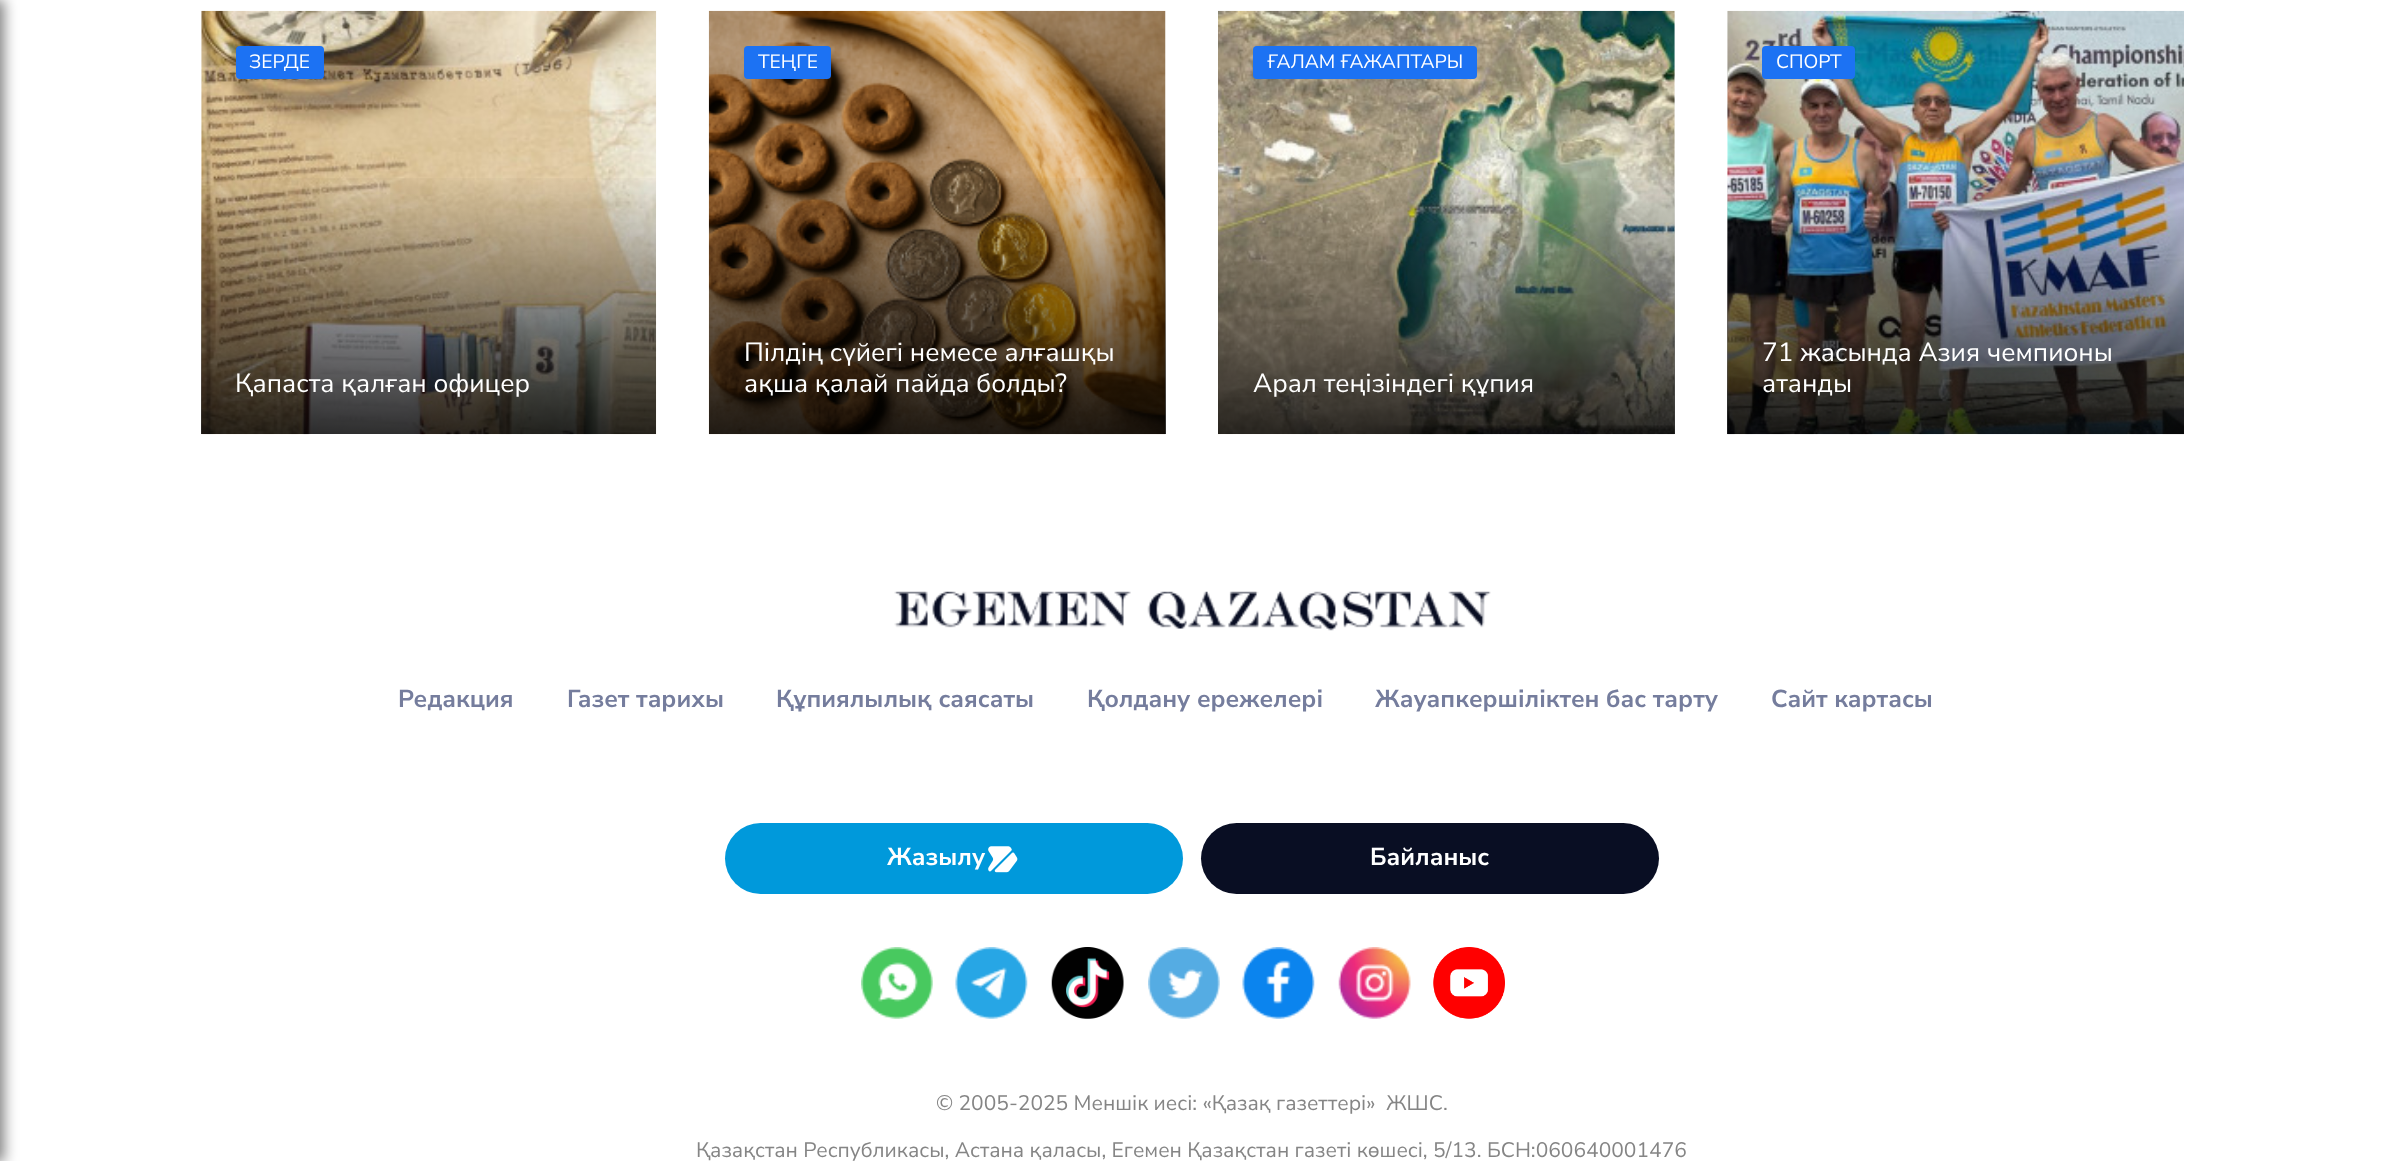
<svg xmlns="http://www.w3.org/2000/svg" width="2395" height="1161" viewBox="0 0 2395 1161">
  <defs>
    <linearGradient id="g1" gradientUnits="userSpaceOnUse" x1="429" y1="10" x2="429" y2="434"><stop offset="0.38" stop-color="rgb(0,0,0)" stop-opacity="0"/><stop offset="1" stop-color="rgb(0,0,0)" stop-opacity="0.8"/></linearGradient>
    <linearGradient id="g2" gradientUnits="userSpaceOnUse" x1="937" y1="10" x2="937" y2="434"><stop offset="0.38" stop-color="rgb(0,0,0)" stop-opacity="0"/><stop offset="1" stop-color="rgb(0,0,0)" stop-opacity="0.8"/></linearGradient>
    <linearGradient id="g3" gradientUnits="userSpaceOnUse" x1="1446" y1="10" x2="1446" y2="434"><stop offset="0.38" stop-color="rgb(0,0,0)" stop-opacity="0"/><stop offset="1" stop-color="rgb(0,0,0)" stop-opacity="0.8"/></linearGradient>
    <linearGradient id="g4" gradientUnits="userSpaceOnUse" x1="1956" y1="10" x2="1956" y2="434"><stop offset="0.38" stop-color="rgb(0,0,0)" stop-opacity="0"/><stop offset="1" stop-color="rgb(0,0,0)" stop-opacity="0.8"/></linearGradient>
  </defs>
  <rect width="100%" height="100%" fill="rgb(255,255,255)"/>
  <rect x="-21" y="0" width="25" height="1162" fill="rgba(0,0,0,0.5)" filter="blur(7px)"/>
  <image x="201" y="10" width="456" height="425" href="pic1.png"/>
  <rect x="236" y="46" width="88" height="33" rx="4" fill="rgb(28,114,243)"/>
  <text x="249" y="68" font-family="Nunito Sans" font-size="19.25" fill="rgb(255,255,255)">ЗЕРДЕ</text>
  <rect x="201" y="178" width="455" height="256" fill="url(#g1)"/>
  <text x="235" y="392" font-family="Nunito Sans" font-size="26.25" fill="rgb(255,255,255)">Қапаста қалған офицер</text>
  <image x="708" y="10" width="458" height="425" href="pic2.png"/>
  <rect x="744" y="46" width="87" height="33" rx="4" fill="rgb(28,114,243)"/>
  <text x="758" y="68" font-family="Nunito Sans" font-size="19.25" fill="rgb(255,255,255)">ТЕҢГЕ</text>
  <rect x="709" y="178" width="457" height="256" fill="url(#g2)"/>
  <g font-family="Nunito Sans" font-size="26.25" fill="rgb(255,255,255)">
    <text>
      <tspan x="744" y="361">Пілдің сүйегі немесе алғашқы</tspan>
      <tspan x="744" y="392">ақша қалай пайда болды?</tspan>
    </text>
  </g>
  <image x="1218" y="10" width="457" height="425" href="pic3.png"/>
  <rect x="1253" y="46" width="224" height="33" rx="4" fill="rgb(28,114,243)"/>
  <text x="1267" y="68" font-family="Nunito Sans" font-size="19.25" fill="rgb(255,255,255)">ҒАЛАМ ҒАЖАПТАРЫ</text>
  <rect x="1218" y="178" width="457" height="256" fill="url(#g3)"/>
  <text x="1253" y="392" font-family="Nunito Sans" font-size="26.25" fill="rgb(255,255,255)">Арал теңізіндегі құпия</text>
  <image x="1727" y="10" width="457" height="425" href="pic4.png"/>
  <rect x="1762" y="46" width="93" height="33" rx="4" fill="rgb(28,114,243)"/>
  <text x="1776" y="68" font-family="Nunito Sans" font-size="19.25" fill="rgb(255,255,255)">СПОРТ</text>
  <rect x="1727" y="178" width="457" height="256" fill="url(#g4)"/>
  <g font-family="Nunito Sans" font-size="26.25" fill="rgb(255,255,255)">
    <text>
      <tspan x="1762" y="361">71 жасында Азия чемпионы</tspan>
      <tspan x="1762" y="392">атанды</tspan>
    </text>
  </g>
  <image x="894" y="591" width="597" height="40" href="pic5.png"/>
  <g font-family="Nunito Sans" font-size="24.5" font-weight="bold" fill="rgb(117,125,157)">
    <text x="398" y="707">Редакция</text>
    <text x="567" y="707">Газет тарихы</text>
    <text x="776" y="707">Құпиялылық саясаты</text>
    <text x="1087" y="707">Қолдану ережелері</text>
    <text x="1375" y="707">Жауапкершіліктен бас тарту</text>
    <text x="1771" y="707">Сайт картасы</text>
  </g>
  <rect x="725" y="823" width="458" height="71" rx="35.5" fill="rgb(0,153,219)"/>
  <text x="887" y="865" font-family="Nunito Sans" font-size="24.5" font-weight="bold" fill="rgb(255,255,255)">Жазылу</text>
  <image x="988" y="846" width="30" height="27" href="pic6.png"/>
  <rect x="1201" y="823" width="458" height="71" rx="35.5" fill="rgb(9,14,35)"/>
  <text x="1370" y="865" font-family="Nunito Sans" font-size="24.5" font-weight="bold" fill="rgb(255,255,255)">Байланыс</text>
  <image x="861" y="947" width="72" height="72" href="pic7.png"/>
  <image x="955" y="947" width="73" height="72" href="pic8.png"/>
  <image x="1051" y="947" width="73" height="72" href="pic9.png"/>
  <image x="1148" y="947" width="72" height="72" href="pic10.png"/>
  <image x="1242" y="947" width="73" height="72" href="pic11.png"/>
  <image x="1338" y="947" width="73" height="72" href="pic12.png"/>
  <image x="1433" y="947" width="72" height="72" href="pic13.png"/>
  <g font-family="Nunito Sans" font-size="21" fill="rgb(133,133,133)">
    <text x="936" y="1110" xml:space="preserve">© 2005-2025 Меншік иесі: «Қазақ газеттері»  ЖШС.</text>
    <text x="696" y="1157">Қазақстан Республикасы, Астана қаласы, Егемен Қазақстан газеті көшесі, 5/13. БСН:060640001476</text>
  </g>
</svg>
